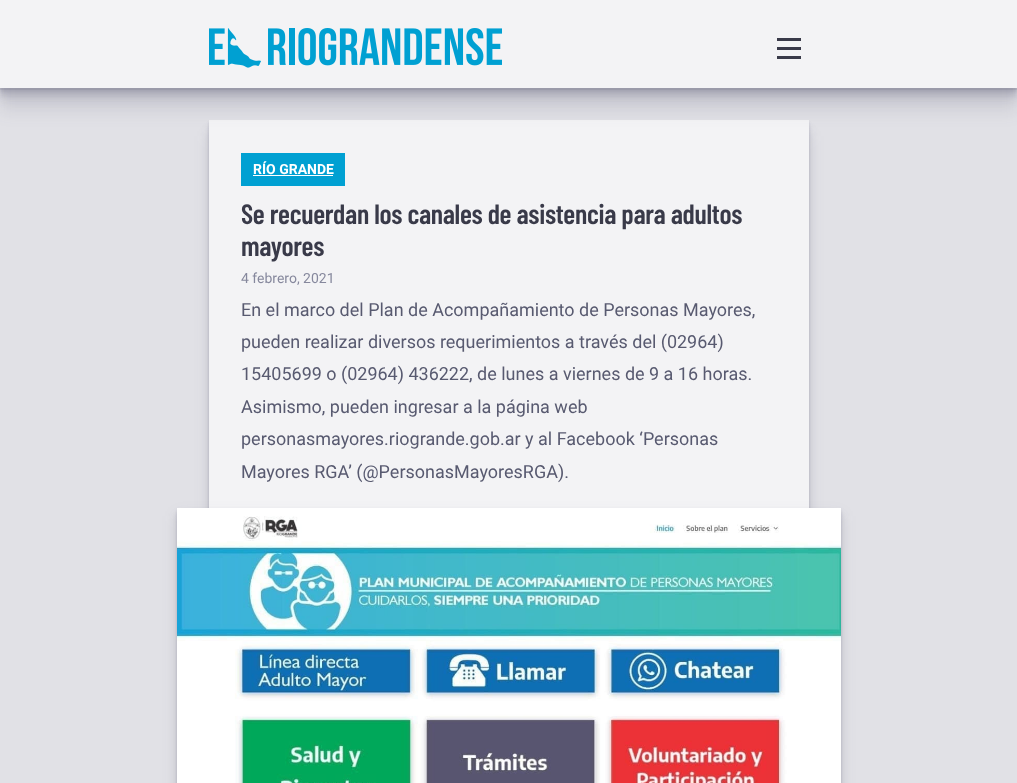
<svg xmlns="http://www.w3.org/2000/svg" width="1017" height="783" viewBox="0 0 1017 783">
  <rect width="100%" height="100%" fill="rgb(225,225,230)"/>
  <rect x="209" y="136" width="600" height="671" fill="rgba(54,57,90,0.1)" filter="blur(8px)"/>
  <rect x="209" y="128" width="600" height="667" fill="rgba(54,57,90,0.1)" filter="blur(4px)"/>
  <rect x="209" y="124" width="600" height="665" fill="rgba(54,57,90,0.1)" filter="blur(2px)"/>
  <rect x="209" y="122" width="600" height="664" fill="rgba(54,57,90,0.1)" filter="blur(1px)"/>
  <rect x="209" y="120" width="600" height="388" fill="rgb(243,243,245)"/>
  <rect x="0" y="24" width="1017" height="88" fill="rgba(54,57,90,0.1)" filter="blur(8px)"/>
  <rect x="0" y="12" width="1017" height="88" fill="rgba(54,57,90,0.1)" filter="blur(4px)"/>
  <rect x="0" y="8" width="1017" height="88" fill="rgba(54,57,90,0.1)" filter="blur(2px)"/>
  <rect x="0" y="4" width="1017" height="88" fill="rgba(54,57,90,0.1)" filter="blur(1px)"/>
  <rect x="0" y="2" width="1017" height="88" fill="rgba(54,57,90,0.1)" filter="blur(0.5px)"/>
  <rect x="0" y="0" width="1017" height="88" fill="rgb(243,243,245)"/>
  <image x="209" y="28" width="293" height="40" href="pic1.png"/>
  <rect x="777" y="47" width="24" height="3" fill="rgb(57,58,73)"/>
  <rect x="777" y="38" width="24" height="3" fill="rgb(57,58,73)"/>
  <rect x="777" y="56" width="24" height="3" fill="rgb(57,58,73)"/>
  <rect x="241" y="153" width="104" height="33" fill="rgb(0,160,210)"/>
  <text x="253" y="174" font-family="Roboto" font-size="14" font-weight="bold" fill="rgb(255,255,255)">RÍO GRANDE</text>
  <rect x="253" y="175" width="80" height="1" fill="rgb(255,255,255)"/>
  <g font-family="Barlow Condensed" font-size="28" font-weight="600" letter-spacing="-0.3" fill="rgb(57,58,73)">
    <text>
      <tspan x="241" y="224">Se recuerdan los canales de asistencia para adultos</tspan>
      <tspan x="241" y="256">mayores</tspan>
    </text>
  </g>
  <text x="241" y="283" font-family="Roboto" font-size="14" fill="rgb(134,136,157)">4 febrero, 2021</text>
  <g font-family="Roboto" font-size="18" fill="rgb(88,90,112)">
    <text>
      <tspan x="241" y="316">En el marco del Plan de Acompañamiento de Personas Mayores,</tspan>
      <tspan x="241" y="348">pueden realizar diversos requerimientos a través del (02964)</tspan>
      <tspan x="241" y="380">15405699 o (02964) 436222, de lunes a viernes de 9 a 16 horas.</tspan>
      <tspan x="241" y="413">Asimismo, pueden ingresar a la página web</tspan>
      <tspan x="241" y="445">personasmayores.riogrande.gob.ar y al Facebook ‘Personas</tspan>
      <tspan x="241" y="478">Mayores RGA’ (@PersonasMayoresRGA).</tspan>
    </text>
  </g>
  <rect x="177" y="516" width="664" height="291" fill="rgba(54,57,90,0.1)" filter="blur(8px)"/>
  <rect x="177" y="514" width="664" height="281" fill="rgba(54,57,90,0.1)" filter="blur(4px)"/>
  <rect x="177" y="512" width="664" height="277" fill="rgba(54,57,90,0.1)" filter="blur(2px)"/>
  <rect x="177" y="510" width="664" height="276" fill="rgba(54,57,90,0.1)" filter="blur(1px)"/>
  <image x="177" y="508" width="664" height="275" href="pic2.png"/>
</svg>
